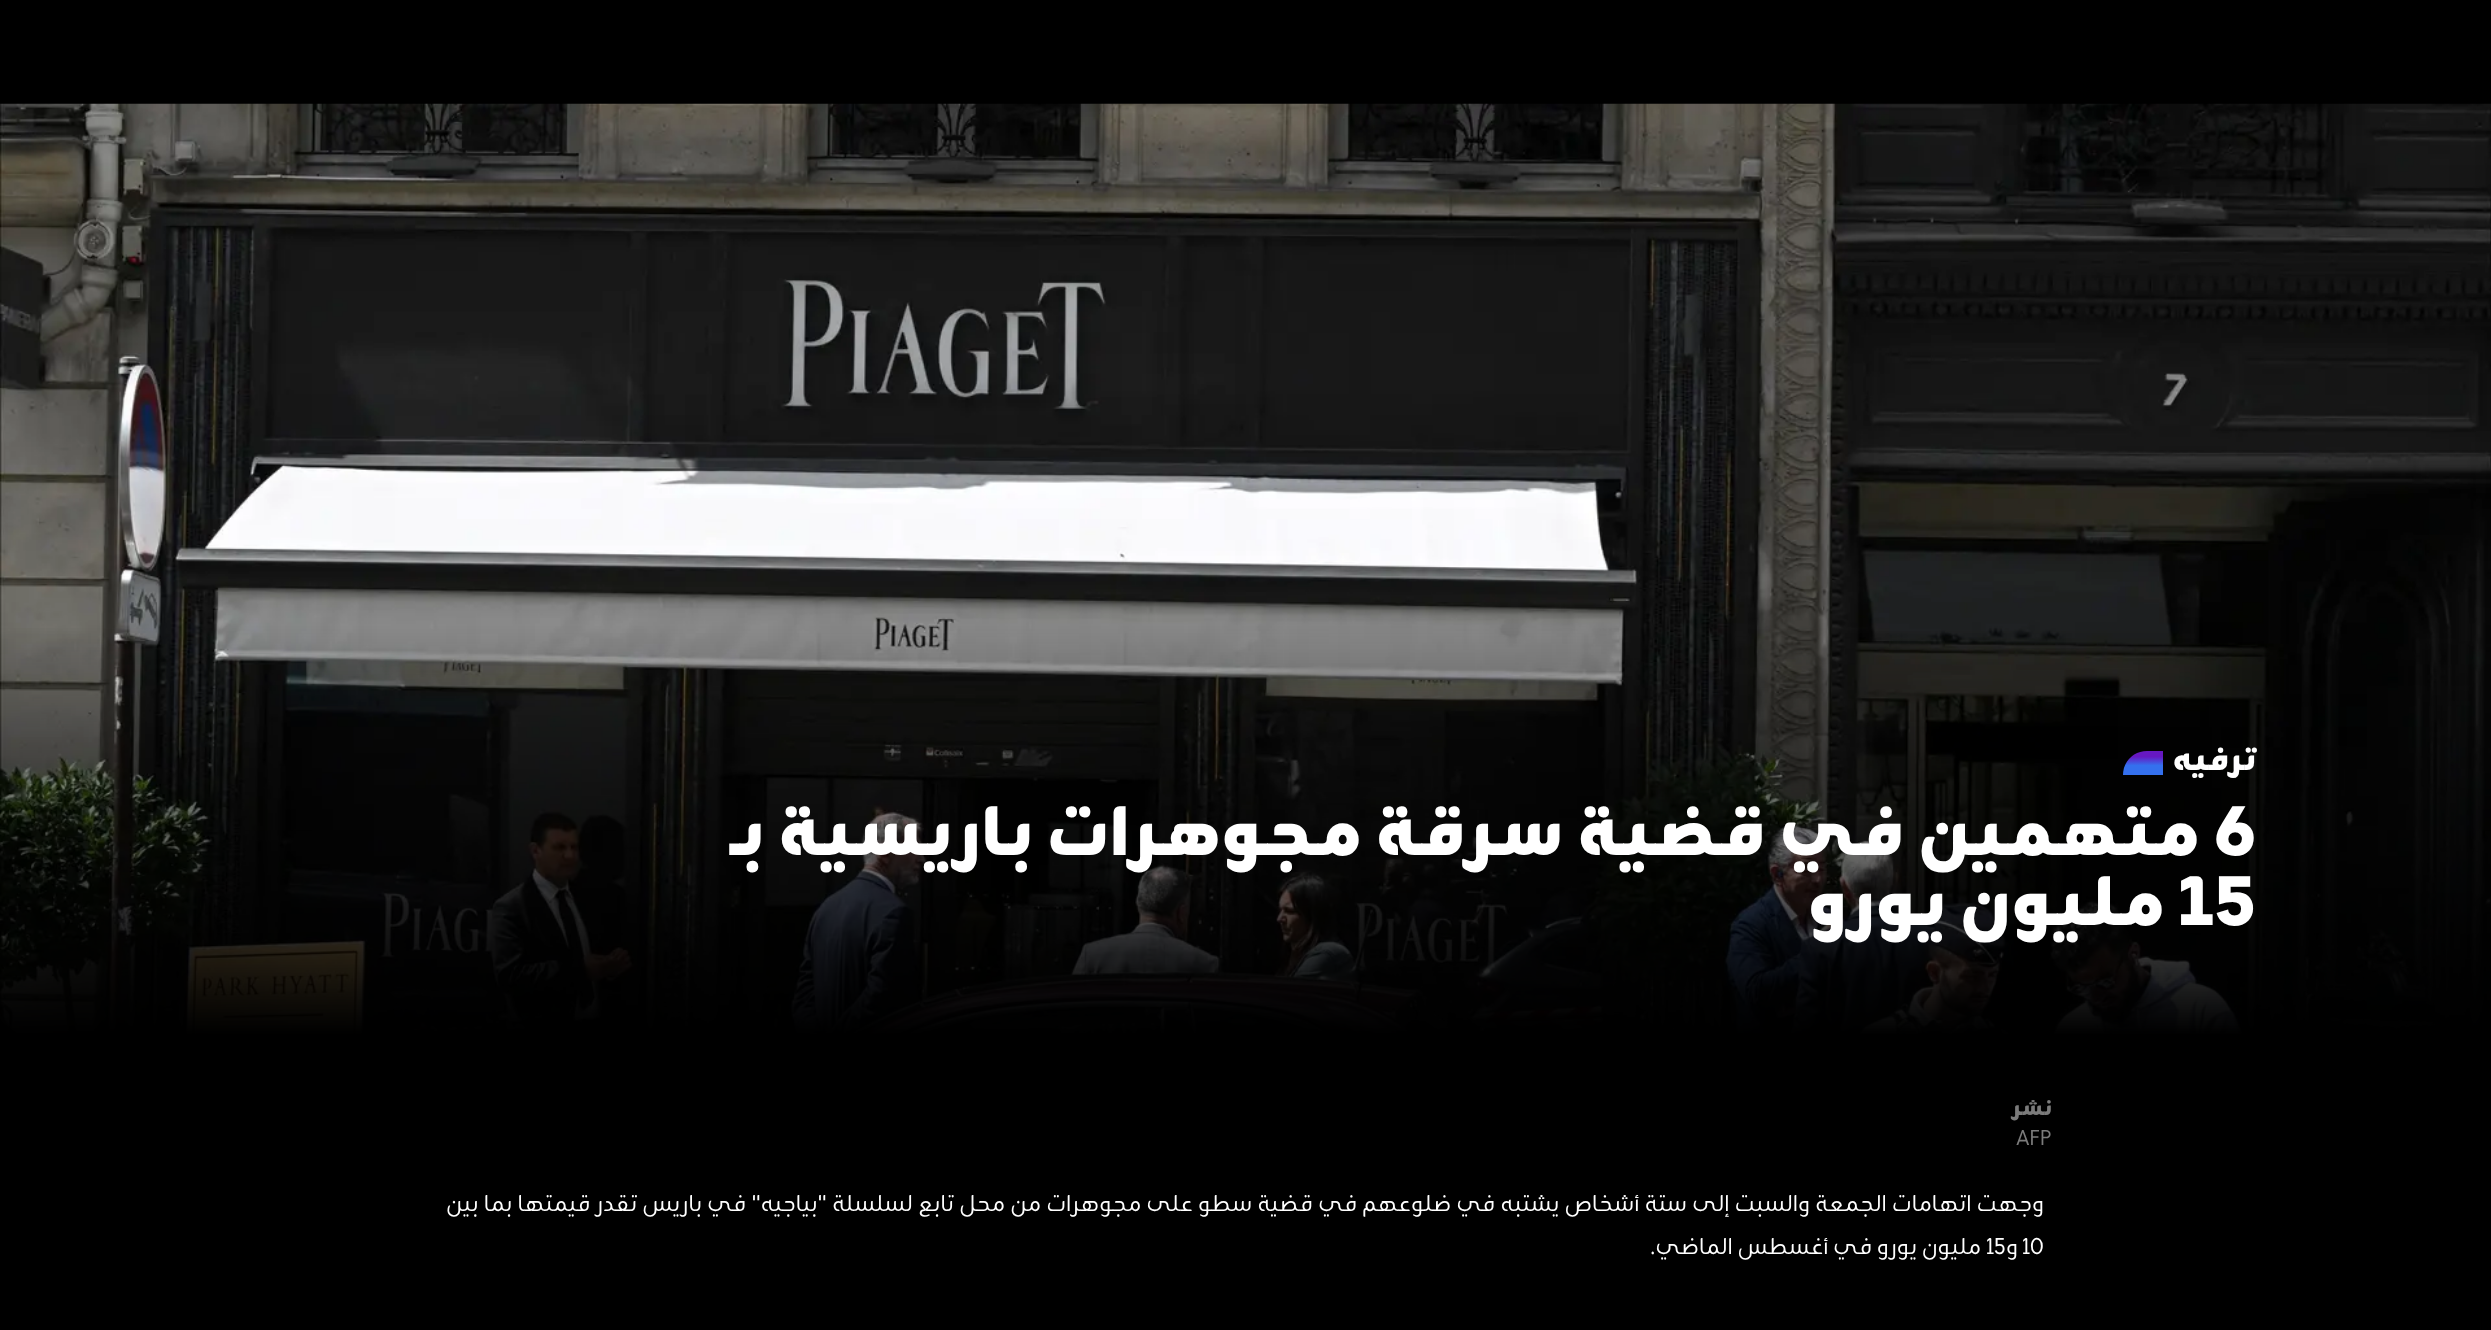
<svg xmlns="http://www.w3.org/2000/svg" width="2491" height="1330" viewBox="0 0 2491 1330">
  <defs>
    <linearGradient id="g1" gradientUnits="userSpaceOnUse" x1="2143" y1="751" x2="2143" y2="775"><stop offset="0.24" stop-color="rgb(102,24,194)"/><stop offset="0.6" stop-color="rgb(52,112,238)"/></linearGradient>
  </defs>
  <rect width="100%" height="100%" fill="rgb(0,0,0)"/>
  <image x="0" y="103" width="2491" height="932" href="pic1.png"/>
  <text x="2256" y="770" font-family="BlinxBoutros" font-size="30" font-weight="800" direction="rtl" fill="rgb(255,255,255)">ترفيه</text>
  <path d="M2147 751H2163V775H2123C2123 761.5 2133.5 751 2147 751Z" fill="url(#g1)"/>
  <text x="2213" y="855" font-family="BlinxBoutros" font-size="65" font-weight="800" fill="rgb(255,255,255)">٦</text>
  <text x="2200" y="855" font-family="BlinxBoutros" font-size="65" font-weight="800" direction="rtl" fill="rgb(255,255,255)">متهمين في قضية سرقة مجوهرات باريسية بـ</text>
  <text x="2178" y="925" font-family="BlinxBoutros" font-size="65" font-weight="800" fill="rgb(255,255,255)">١٥</text>
  <text x="2165" y="925" font-family="BlinxBoutros" font-size="65" font-weight="800" direction="rtl" fill="rgb(255,255,255)">مليون يورو</text>
  <text x="2052" y="1115" font-family="BlinxBoutros" font-size="20" font-weight="800" direction="rtl" fill="rgb(123,123,123)">نشر</text>
  <text x="2016" y="1145" font-family="BlinxBoutros" font-size="20" font-weight="300" fill="rgb(123,123,123)">AFP</text>
  <text x="2044" y="1211" word-spacing="0.6" font-family="BlinxBoutros" font-size="21.25" font-weight="300" direction="rtl" fill="rgb(255,255,255)">وجهت اتهامات الجمعة والسبت إلى ستة أشخاص يشتبه في ضلوعهم في قضية سطو على مجوهرات من محل تابع لسلسلة "بياجيه" في باريس تقدر قيمتها بما بين</text>
  <text x="2022" y="1254" font-family="BlinxBoutros" font-size="21.25" font-weight="300" fill="rgb(255,255,255)">10</text>
  <text x="2018" y="1254" font-family="BlinxBoutros" font-size="21.25" font-weight="300" direction="rtl" fill="rgb(255,255,255)">و</text>
  <text x="1986" y="1254" font-family="BlinxBoutros" font-size="21.25" font-weight="300" fill="rgb(255,255,255)">15</text>
  <text x="1981" y="1254" font-family="BlinxBoutros" font-size="21.25" font-weight="300" direction="rtl" fill="rgb(255,255,255)">مليون يورو في أغسطس الماضي.</text>
</svg>
